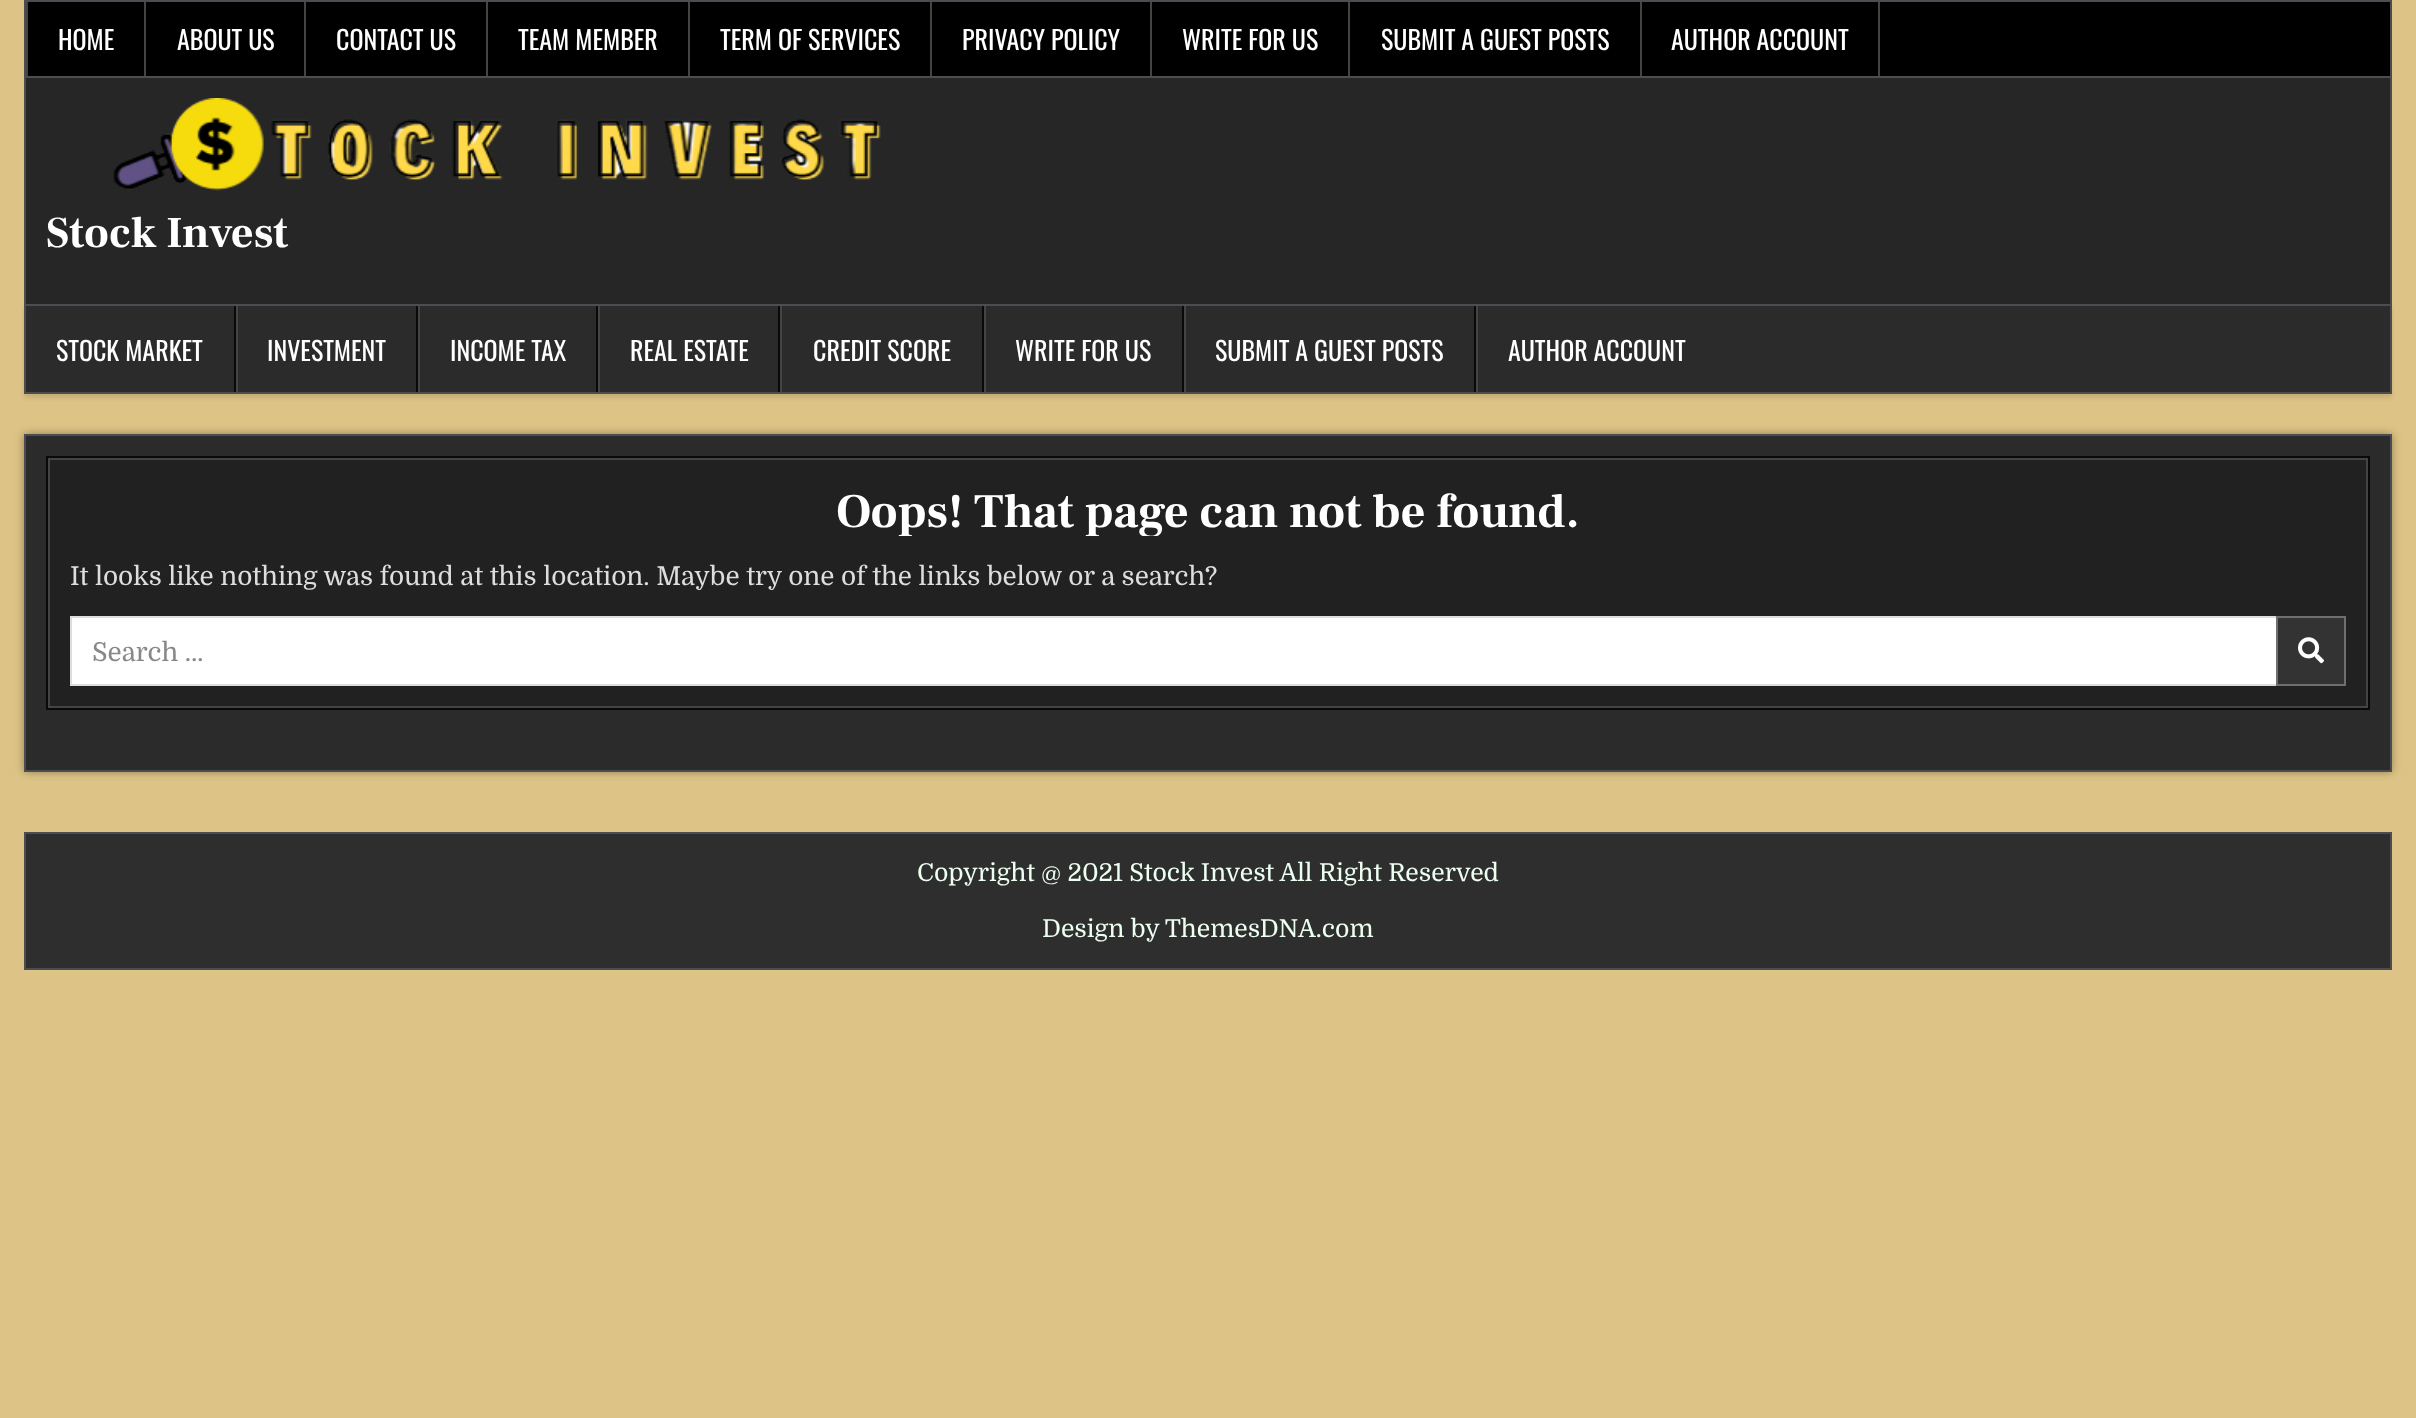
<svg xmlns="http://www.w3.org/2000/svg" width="2416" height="1418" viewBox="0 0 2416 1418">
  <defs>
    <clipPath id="clip1"><rect x="78" y="488" width="2260" height="48"/></clipPath>
  </defs>
  <rect width="100%" height="100%" fill="rgb(221,195,133)"/>
  <rect x="28" y="2" width="2362" height="74" fill="rgb(0,0,0)"/>
  <rect x="25" y="1" width="2366" height="76" fill="none" stroke="rgb(74,78,83)" stroke-width="2"/>
  <rect x="144" y="2" width="2" height="74" fill="rgb(68,68,68)"/>
  <rect x="26" y="2" width="2" height="74" fill="rgb(68,68,68)"/>
  <text x="58" y="50" font-family="Oswald" font-size="26" fill="rgb(255,255,255)">HOME</text>
  <rect x="304" y="2" width="2" height="74" fill="rgb(68,68,68)"/>
  <text x="177" y="50" font-family="Oswald" font-size="26" fill="rgb(255,255,255)">ABOUT US</text>
  <rect x="486" y="2" width="2" height="74" fill="rgb(68,68,68)"/>
  <text x="336" y="50" font-family="Oswald" font-size="26" fill="rgb(255,255,255)">CONTACT US</text>
  <rect x="688" y="2" width="2" height="74" fill="rgb(68,68,68)"/>
  <text x="518" y="50" font-family="Oswald" font-size="26" fill="rgb(255,255,255)">TEAM MEMBER</text>
  <rect x="930" y="2" width="2" height="74" fill="rgb(68,68,68)"/>
  <text x="720" y="50" font-family="Oswald" font-size="26" fill="rgb(255,255,255)">TERM OF SERVICES</text>
  <rect x="1150" y="2" width="2" height="74" fill="rgb(68,68,68)"/>
  <text x="962" y="50" font-family="Oswald" font-size="26" fill="rgb(255,255,255)">PRIVACY POLICY</text>
  <rect x="1348" y="2" width="2" height="74" fill="rgb(68,68,68)"/>
  <text x="1182" y="50" font-family="Oswald" font-size="26" fill="rgb(255,255,255)">WRITE FOR US</text>
  <rect x="1640" y="2" width="2" height="74" fill="rgb(68,68,68)"/>
  <text x="1381" y="50" font-family="Oswald" font-size="26" fill="rgb(255,255,255)">SUBMIT A GUEST POSTS</text>
  <rect x="1878" y="2" width="2" height="74" fill="rgb(68,68,68)"/>
  <text x="1671" y="50" font-family="Oswald" font-size="26" fill="rgb(255,255,255)">AUTHOR ACCOUNT</text>
  <rect x="24" y="308" width="2368" height="90" fill="rgba(0,0,0,0.1)" filter="blur(2px)"/>
  <rect x="26" y="78" width="2364" height="226" fill="rgb(38,38,38)"/>
  <rect x="2390" y="78" width="2" height="226" fill="rgb(74,78,83)"/>
  <rect x="24" y="78" width="2" height="226" fill="rgb(74,78,83)"/>
  <image x="113" y="98" width="768" height="93" href="pic1.png"/>
  <text x="46" y="247" font-family="Frank Ruhl Libre" font-size="44" font-weight="bold" fill="rgb(255,255,255)">Stock Invest</text>
  <rect x="25" y="305" width="2366" height="88" fill="rgb(43,43,43)" stroke="rgb(74,78,83)" stroke-width="2"/>
  <rect x="234" y="306" width="2" height="86" fill="rgb(9,9,9)"/>
  <text x="56" y="361" font-family="Oswald" font-size="26" fill="rgb(255,255,255)">STOCK MARKET</text>
  <rect x="416" y="306" width="2" height="86" fill="rgb(9,9,9)"/>
  <rect x="236" y="306" width="2" height="86" fill="rgb(68,68,68)"/>
  <text x="267" y="361" font-family="Oswald" font-size="26" fill="rgb(255,255,255)">INVESTMENT</text>
  <rect x="596" y="306" width="2" height="86" fill="rgb(9,9,9)"/>
  <rect x="418" y="306" width="2" height="86" fill="rgb(68,68,68)"/>
  <text x="450" y="361" font-family="Oswald" font-size="26" fill="rgb(255,255,255)">INCOME TAX</text>
  <rect x="778" y="306" width="2" height="86" fill="rgb(9,9,9)"/>
  <rect x="598" y="306" width="2" height="86" fill="rgb(68,68,68)"/>
  <text x="630" y="361" font-family="Oswald" font-size="26" fill="rgb(255,255,255)">REAL ESTATE</text>
  <rect x="982" y="306" width="2" height="86" fill="rgb(9,9,9)"/>
  <rect x="780" y="306" width="2" height="86" fill="rgb(68,68,68)"/>
  <text x="813" y="361" font-family="Oswald" font-size="26" fill="rgb(255,255,255)">CREDIT SCORE</text>
  <rect x="1182" y="306" width="2" height="86" fill="rgb(9,9,9)"/>
  <rect x="984" y="306" width="2" height="86" fill="rgb(68,68,68)"/>
  <text x="1015" y="361" font-family="Oswald" font-size="26" fill="rgb(255,255,255)">WRITE FOR US</text>
  <rect x="1474" y="306" width="2" height="86" fill="rgb(9,9,9)"/>
  <rect x="1184" y="306" width="2" height="86" fill="rgb(68,68,68)"/>
  <text x="1215" y="361" font-family="Oswald" font-size="26" fill="rgb(255,255,255)">SUBMIT A GUEST POSTS</text>
  <rect x="1476" y="306" width="2" height="86" fill="rgb(68,68,68)"/>
  <text x="1508" y="361" font-family="Oswald" font-size="26" fill="rgb(255,255,255)">AUTHOR ACCOUNT</text>
  <rect x="24" y="434" width="2368" height="338" fill="rgba(0,0,0,0.35)" filter="blur(4px)"/>
  <rect x="25" y="435" width="2366" height="336" fill="rgb(43,43,43)" stroke="rgb(74,78,83)" stroke-width="2"/>
  <rect x="50" y="460" width="2316" height="246" fill="rgb(33,33,33)"/>
  <rect x="47" y="457" width="2322" height="252" fill="none" stroke="rgb(9,9,9)" stroke-width="2"/>
  <rect x="49" y="459" width="2318" height="248" fill="none" stroke="rgb(68,68,68)" stroke-width="2"/>
  <g clip-path="url(#clip1)">
    <text x="836" y="527" font-family="Frank Ruhl Libre" font-size="48" font-weight="bold" fill="rgb(255,255,255)">Oops! That page can not be found.</text>
  </g>
  <text x="70" y="585" font-family="Domine" font-size="26" fill="rgb(221,221,221)">It looks like nothing was found at this location. Maybe try one of the links below or a search?</text>
  <rect x="72" y="618" width="2204" height="66" fill="rgb(255,255,255)"/>
  <rect x="71" y="617" width="2274" height="68" fill="none" stroke="rgb(221,221,221)" stroke-width="2"/>
  <text x="92" y="661" font-family="Domine" font-size="26" fill="rgb(136,136,136)">Search …</text>
  <rect x="2277" y="617" width="68" height="68" fill="rgb(51,51,51)" stroke="rgb(111,111,111)" stroke-width="2"/>
  <image x="2298" y="637" width="26" height="27" href="pic2.png"/>
  <rect x="25" y="833" width="2366" height="136" fill="rgb(46,46,46)" stroke="rgb(74,78,83)" stroke-width="2"/>
  <g font-family="Domine" font-size="24.7" fill="rgb(236,255,241)">
    <text x="917" y="881">Copyright @ 2021 Stock Invest All Right Reserved</text>
    <text x="1042" y="937">Design by ThemesDNA.com</text>
  </g>
</svg>
